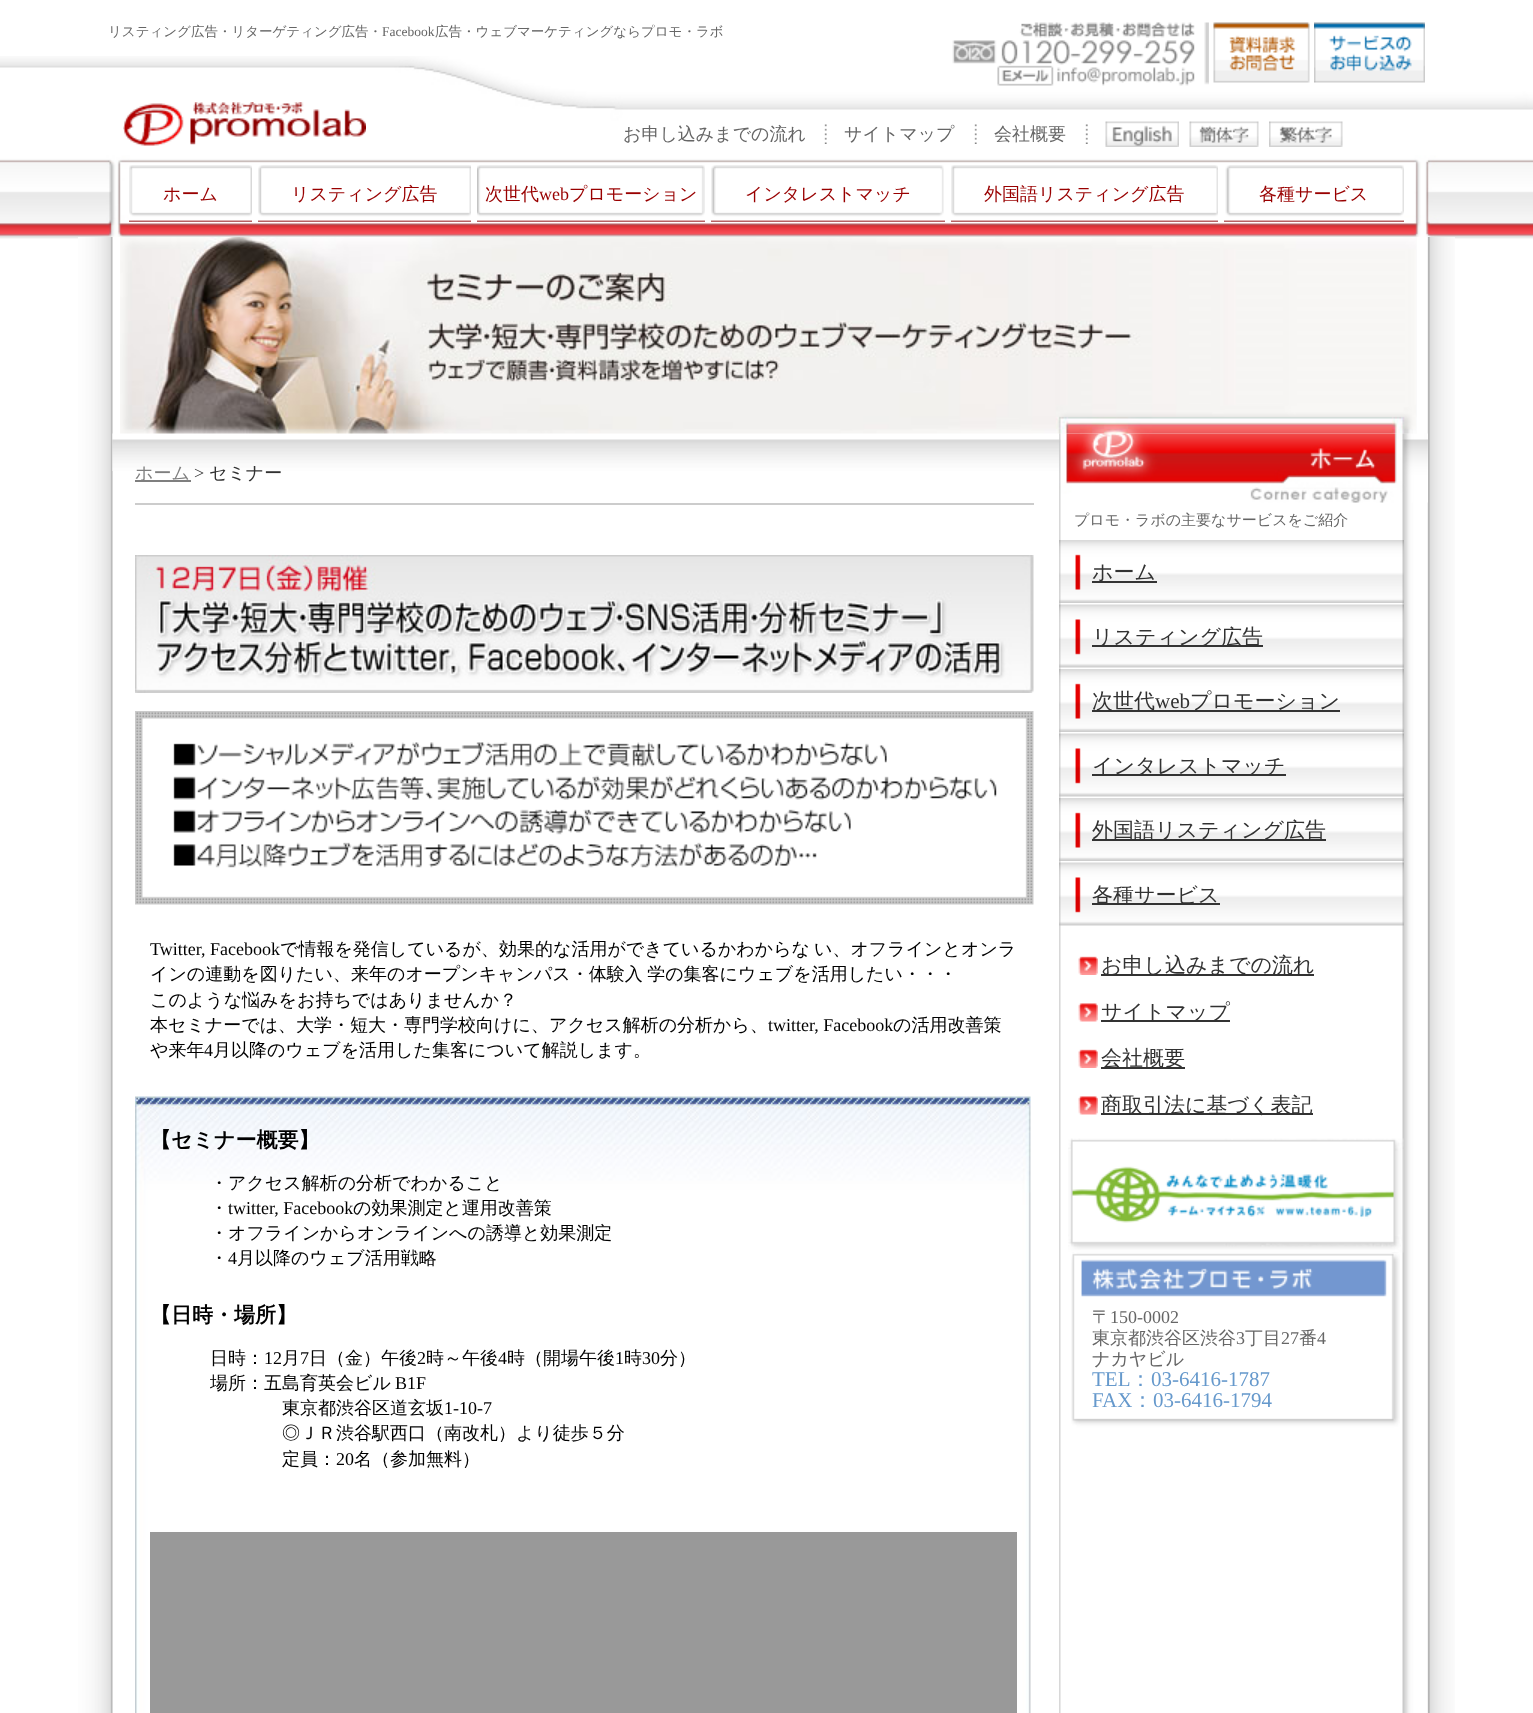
<svg xmlns="http://www.w3.org/2000/svg" width="1533" height="1713" viewBox="0 0 1533 1713">
  <rect width="100%" height="100%" fill="rgb(255,255,255)"/>
  <image x="0" y="56" width="1533" height="183" href="pic1.png"/>
  <text x="108" y="36" font-family="WenQuanYi Zen Hei" font-size="13.5" font-weight="500" fill="rgb(102,102,102)">リスティング広告・リターゲティング広告・</text>
  <text x="382" y="36" font-family="Liberation Serif" font-size="13.5" fill="rgb(102,102,102)">Facebook</text>
  <text x="435" y="36" font-family="WenQuanYi Zen Hei" font-size="13.5" font-weight="500" fill="rgb(102,102,102)">広告・ウェブマーケティングならプロモ・ラボ</text>
  <image x="952" y="22" width="257" height="64" href="pic2.png"/>
  <image x="1213" y="22" width="97" height="61" href="pic3.png"/>
  <image x="1314" y="22" width="111" height="61" href="pic4.png"/>
  <image x="123" y="102" width="243" height="44" href="pic5.png"/>
  <text x="623" y="140" font-family="WenQuanYi Zen Hei" font-size="18" font-weight="500" fill="rgb(102,102,102)">お申し込みまでの流れ</text>
  <image x="824" y="124" width="3" height="20" href="pic6.png"/>
  <text x="844" y="140" font-family="WenQuanYi Zen Hei" font-size="18" font-weight="500" fill="rgb(102,102,102)">サイトマップ</text>
  <image x="974" y="124" width="3" height="20" href="pic6.png"/>
  <text x="994" y="140" font-family="WenQuanYi Zen Hei" font-size="18" font-weight="500" fill="rgb(102,102,102)">会社概要</text>
  <image x="1085" y="124" width="3" height="20" href="pic7.png"/>
  <image x="1105" y="121" width="74" height="26" href="pic8.png"/>
  <image x="1189" y="121" width="70" height="26" href="pic9.png"/>
  <image x="1269" y="121" width="74" height="26" href="pic10.png"/>
  <image x="129" y="165" width="123" height="57" href="pic11.png"/>
  <text x="163" y="200" font-family="WenQuanYi Zen Hei" font-size="18" font-weight="500" fill="rgb(153,0,0)">ホーム</text>
  <image x="258" y="165" width="213" height="57" href="pic12.png"/>
  <text x="291" y="200" font-family="WenQuanYi Zen Hei" font-size="18" font-weight="500" fill="rgb(153,0,0)">リスティング広告</text>
  <image x="477" y="165" width="228" height="57" href="pic13.png"/>
  <text x="485" y="200" font-family="WenQuanYi Zen Hei" font-size="18" font-weight="500" fill="rgb(153,0,0)">次世代</text>
  <text x="539" y="200" font-family="Liberation Serif" font-size="18" fill="rgb(153,0,0)">web</text>
  <text x="569" y="200" font-family="WenQuanYi Zen Hei" font-size="18" font-weight="500" fill="rgb(153,0,0)">プロモーション</text>
  <image x="711" y="165" width="234" height="57" href="pic14.png"/>
  <text x="745" y="200" font-family="WenQuanYi Zen Hei" font-size="18" font-weight="500" fill="rgb(153,0,0)">インタレストマッチ</text>
  <image x="951" y="165" width="267" height="57" href="pic15.png"/>
  <text x="984" y="200" font-family="WenQuanYi Zen Hei" font-size="18" font-weight="500" fill="rgb(153,0,0)">外国語リスティング広告</text>
  <image x="1224" y="165" width="180" height="57" href="pic16.png"/>
  <text x="1259" y="200" font-family="WenQuanYi Zen Hei" font-size="18" font-weight="500" fill="rgb(153,0,0)">各種サービス</text>
  <image x="78" y="237" width="1377" height="1476" href="pic17.png"/>
  <image x="112" y="433" width="1313" height="38" href="pic19.png"/>
  <image x="1059" y="433" width="359" height="1280" href="pic23.png"/>
  <image x="1059" y="433" width="369" height="70" href="pic24.png"/>
  <image x="120" y="237" width="1297" height="197" href="pic18.png"/>
  <rect x="135" y="503" width="899" height="2" fill="rgb(204,204,204)"/>
  <rect x="135" y="480" width="56" height="2" fill="rgb(127,127,127)"/>
  <text x="135" y="479" font-family="WenQuanYi Zen Hei" font-size="18" font-weight="500" fill="rgb(127,127,127)">ホーム</text>
  <text x="194" y="479" font-family="Liberation Serif" font-size="18" fill="rgb(50,50,50)">&gt;</text>
  <text x="209" y="479" font-family="WenQuanYi Zen Hei" font-size="18" font-weight="500" fill="rgb(50,50,50)">セミナー</text>
  <image x="135" y="555" width="899" height="138" href="pic20.png"/>
  <image x="135" y="711" width="899" height="194" href="pic21.png"/>
  <text x="150" y="955" font-family="Liberation Serif" font-size="18" fill="rgb(0,0,0)">Twitter, Facebook</text>
  <g font-family="WenQuanYi Zen Hei" font-size="18" font-weight="500" fill="rgb(0,0,0)">
    <text x="280" y="955">で情報を発信しているが、効果的な活用ができているかわからな</text>
    <text x="814" y="955">い、オフラインとオンラ</text>
    <text>
      <tspan x="150" y="980" word-spacing="-1">インの連動を図りたい、来年のオープンキャンパス・体験入 学の集客にウェブを活用したい・・・</tspan>
      <tspan x="150" y="1006">このような悩みをお持ちではありませんか？</tspan>
      <tspan x="150" y="1031">本セミナーでは、大学・短大・専門学校向けに、アクセス解析の分析から、</tspan>
    </text>
  </g>
  <text x="768" y="1031" font-family="Liberation Serif" font-size="18" fill="rgb(0,0,0)">twitter, Facebook</text>
  <g font-family="WenQuanYi Zen Hei" font-size="18" font-weight="500" fill="rgb(0,0,0)">
    <text x="893" y="1031">の活用改善策</text>
    <text x="150" y="1056">や来年</text>
  </g>
  <text x="204" y="1056" font-family="Liberation Serif" font-size="18" fill="rgb(0,0,0)">4</text>
  <text x="213" y="1056" font-family="WenQuanYi Zen Hei" font-size="18" font-weight="500" fill="rgb(0,0,0)">月以降のウェブを活用した集客について解説します。</text>
  <image x="135" y="1096" width="896" height="617" href="pic22.png"/>
  <text x="150" y="1147" font-family="WenQuanYi Zen Hei" font-size="21" font-weight="bold" fill="rgb(0,0,0)">【セミナー概要】</text>
  <g font-family="WenQuanYi Zen Hei" font-size="18" font-weight="500" fill="rgb(0,0,0)">
    <text>
      <tspan x="210" y="1189">・アクセス解析の分析でわかること</tspan>
      <tspan x="210" y="1214">・</tspan>
    </text>
  </g>
  <text x="228" y="1214" font-family="Liberation Serif" font-size="18" fill="rgb(0,0,0)">twitter, Facebook</text>
  <g font-family="WenQuanYi Zen Hei" font-size="18" font-weight="500" fill="rgb(0,0,0)">
    <text x="353" y="1214">の効果測定と運用改善策</text>
    <text>
      <tspan x="210" y="1239">・オフラインからオンラインへの誘導と効果測定</tspan>
      <tspan x="210" y="1264">・</tspan>
    </text>
  </g>
  <text x="228" y="1264" font-family="Liberation Serif" font-size="18" fill="rgb(0,0,0)">4</text>
  <text x="237" y="1264" font-family="WenQuanYi Zen Hei" font-size="18" font-weight="500" fill="rgb(0,0,0)">月以降のウェブ活用戦略</text>
  <text x="150" y="1322" font-family="WenQuanYi Zen Hei" font-size="21" font-weight="bold" fill="rgb(0,0,0)">【日時・場所】</text>
  <text x="210" y="1364" font-family="WenQuanYi Zen Hei" font-size="18" font-weight="500" fill="rgb(0,0,0)">日時：</text>
  <text x="264" y="1364" font-family="Liberation Serif" font-size="18" fill="rgb(0,0,0)">12</text>
  <text x="282" y="1364" font-family="WenQuanYi Zen Hei" font-size="18" font-weight="500" fill="rgb(0,0,0)">月</text>
  <text x="300" y="1364" font-family="Liberation Serif" font-size="18" fill="rgb(0,0,0)">7</text>
  <text x="309" y="1364" font-family="WenQuanYi Zen Hei" font-size="18" font-weight="500" fill="rgb(0,0,0)">日（金）午後</text>
  <text x="417" y="1364" font-family="Liberation Serif" font-size="18" fill="rgb(0,0,0)">2</text>
  <text x="426" y="1364" font-family="WenQuanYi Zen Hei" font-size="18" font-weight="500" fill="rgb(0,0,0)">時～午後</text>
  <text x="498" y="1364" font-family="Liberation Serif" font-size="18" fill="rgb(0,0,0)">4</text>
  <text x="507" y="1364" font-family="WenQuanYi Zen Hei" font-size="18" font-weight="500" fill="rgb(0,0,0)">時（開場午後</text>
  <text x="615" y="1364" font-family="Liberation Serif" font-size="18" fill="rgb(0,0,0)">1</text>
  <text x="624" y="1364" font-family="WenQuanYi Zen Hei" font-size="18" font-weight="500" fill="rgb(0,0,0)">時</text>
  <text x="642" y="1364" font-family="Liberation Serif" font-size="18" fill="rgb(0,0,0)">30</text>
  <g font-family="WenQuanYi Zen Hei" font-size="18" font-weight="500" fill="rgb(0,0,0)">
    <text x="660" y="1364">分）</text>
    <text x="210" y="1389">場所：五島育英会ビル</text>
  </g>
  <text x="395" y="1389" font-family="Liberation Serif" font-size="18" fill="rgb(0,0,0)">B1F</text>
  <text x="282" y="1414" font-family="WenQuanYi Zen Hei" font-size="18" font-weight="500" fill="rgb(0,0,0)">東京都渋谷区道玄坂</text>
  <text x="444" y="1414" font-family="Liberation Serif" font-size="18" fill="rgb(0,0,0)">1-10-7</text>
  <g font-family="WenQuanYi Zen Hei" font-size="18" font-weight="500" fill="rgb(0,0,0)">
    <text>
      <tspan x="282" y="1439">◎ＪＲ渋谷駅西口（南改札）より徒歩５分</tspan>
      <tspan x="282" y="1465">定員：</tspan>
    </text>
  </g>
  <text x="336" y="1465" font-family="Liberation Serif" font-size="18" fill="rgb(0,0,0)">20</text>
  <text x="354" y="1465" font-family="WenQuanYi Zen Hei" font-size="18" font-weight="500" fill="rgb(0,0,0)">名（参加無料）</text>
  <rect x="150" y="1532" width="867" height="181" fill="rgb(153,153,153)"/>
  <text x="1074" y="525" font-family="WenQuanYi Zen Hei" font-size="15" font-weight="500" fill="rgb(102,102,102)">プロモ・ラボの主要なサービスをご紹介</text>
  <image x="1059" y="540" width="345" height="63" href="pic25.png"/>
  <rect x="1092" y="581" width="65" height="2" fill="rgb(51,51,51)"/>
  <text x="1092" y="579" font-family="WenQuanYi Zen Hei" font-size="21" font-weight="500" fill="rgb(50,50,50)">ホーム</text>
  <image x="1059" y="604" width="345" height="64" href="pic26.png"/>
  <rect x="1092" y="645" width="171" height="2" fill="rgb(51,51,51)"/>
  <text x="1092" y="644" font-family="WenQuanYi Zen Hei" font-size="21" font-weight="500" fill="rgb(50,50,50)">リスティング広告</text>
  <image x="1059" y="669" width="345" height="63" href="pic25.png"/>
  <rect x="1092" y="710" width="248" height="2" fill="rgb(51,51,51)"/>
  <text x="1092" y="708" font-family="WenQuanYi Zen Hei" font-size="21" font-weight="500" fill="rgb(50,50,50)">次世代</text>
  <text x="1155" y="708" font-family="Liberation Serif" font-size="21" fill="rgb(50,50,50)">web</text>
  <text x="1190" y="708" font-family="WenQuanYi Zen Hei" font-size="21" font-weight="500" fill="rgb(50,50,50)">プロモーション</text>
  <image x="1059" y="733" width="345" height="64" href="pic26.png"/>
  <rect x="1092" y="774" width="194" height="2" fill="rgb(51,51,51)"/>
  <text x="1092" y="773" font-family="WenQuanYi Zen Hei" font-size="21" font-weight="500" fill="rgb(50,50,50)">インタレストマッチ</text>
  <image x="1059" y="798" width="345" height="63" href="pic25.png"/>
  <rect x="1092" y="839" width="234" height="2" fill="rgb(51,51,51)"/>
  <text x="1092" y="837" font-family="WenQuanYi Zen Hei" font-size="21" font-weight="500" fill="rgb(50,50,50)">外国語リスティング広告</text>
  <image x="1059" y="862" width="345" height="64" href="pic26.png"/>
  <rect x="1092" y="903" width="128" height="2" fill="rgb(51,51,51)"/>
  <text x="1092" y="902" font-family="WenQuanYi Zen Hei" font-size="21" font-weight="500" fill="rgb(50,50,50)">各種サービス</text>
  <image x="1078" y="956" width="20" height="19" href="pic27.png"/>
  <rect x="1101" y="974" width="213" height="2" fill="rgb(51,51,51)"/>
  <text x="1101" y="972" font-family="WenQuanYi Zen Hei" font-size="21" font-weight="500" fill="rgb(50,50,50)">お申し込みまでの流れ</text>
  <image x="1078" y="1003" width="20" height="19" href="pic28.png"/>
  <rect x="1101" y="1020" width="129" height="2" fill="rgb(51,51,51)"/>
  <text x="1101" y="1019" font-family="WenQuanYi Zen Hei" font-size="21" font-weight="500" fill="rgb(50,50,50)">サイトマップ</text>
  <image x="1078" y="1049" width="20" height="19" href="pic27.png"/>
  <rect x="1101" y="1067" width="84" height="2" fill="rgb(51,51,51)"/>
  <text x="1101" y="1065" font-family="WenQuanYi Zen Hei" font-size="21" font-weight="500" fill="rgb(50,50,50)">会社概要</text>
  <image x="1078" y="1096" width="20" height="19" href="pic28.png"/>
  <rect x="1101" y="1113" width="212" height="2" fill="rgb(51,51,51)"/>
  <text x="1101" y="1112" font-family="WenQuanYi Zen Hei" font-size="21" font-weight="500" fill="rgb(50,50,50)">商取引法に基づく表記</text>
  <image x="1071" y="1252" width="329" height="166" href="pic30.png"/>
  <image x="1068" y="1138" width="336" height="115" href="pic29.png"/>
  <image x="1071" y="1252" width="329" height="45" href="pic31.png"/>
  <text x="1092" y="1323" font-family="WenQuanYi Zen Hei" font-size="18" font-weight="500" fill="rgb(102,102,102)">〒</text>
  <text x="1110" y="1323" font-family="Liberation Serif" font-size="18" fill="rgb(102,102,102)">150-0002</text>
  <text x="1092" y="1344" font-family="WenQuanYi Zen Hei" font-size="18" font-weight="500" fill="rgb(102,102,102)">東京都渋谷区渋谷</text>
  <text x="1236" y="1344" font-family="Liberation Serif" font-size="18" fill="rgb(102,102,102)">3</text>
  <text x="1245" y="1344" font-family="WenQuanYi Zen Hei" font-size="18" font-weight="500" fill="rgb(102,102,102)">丁目</text>
  <text x="1281" y="1344" font-family="Liberation Serif" font-size="18" fill="rgb(102,102,102)">27</text>
  <text x="1299" y="1344" font-family="WenQuanYi Zen Hei" font-size="18" font-weight="500" fill="rgb(102,102,102)">番</text>
  <text x="1317" y="1344" font-family="Liberation Serif" font-size="18" fill="rgb(102,102,102)">4</text>
  <text x="1092" y="1365" font-family="WenQuanYi Zen Hei" font-size="18" font-weight="500" fill="rgb(102,102,102)">ナカヤビル</text>
  <text x="1092" y="1386" font-family="Liberation Serif" font-size="21" fill="rgb(102,153,204)">TEL</text>
  <text x="1130" y="1386" font-family="WenQuanYi Zen Hei" font-size="21" font-weight="500" fill="rgb(102,153,204)">：</text>
  <g font-family="Liberation Serif" font-size="21" fill="rgb(102,153,204)">
    <text x="1151" y="1386">03-6416-1787</text>
    <text x="1092" y="1407">FAX</text>
  </g>
  <text x="1132" y="1407" font-family="WenQuanYi Zen Hei" font-size="21" font-weight="500" fill="rgb(102,153,204)">：</text>
  <text x="1153" y="1407" font-family="Liberation Serif" font-size="21" fill="rgb(102,153,204)">03-6416-1794</text>
  <image x="1071" y="1418" width="329" height="10" href="pic32.png"/>
</svg>
